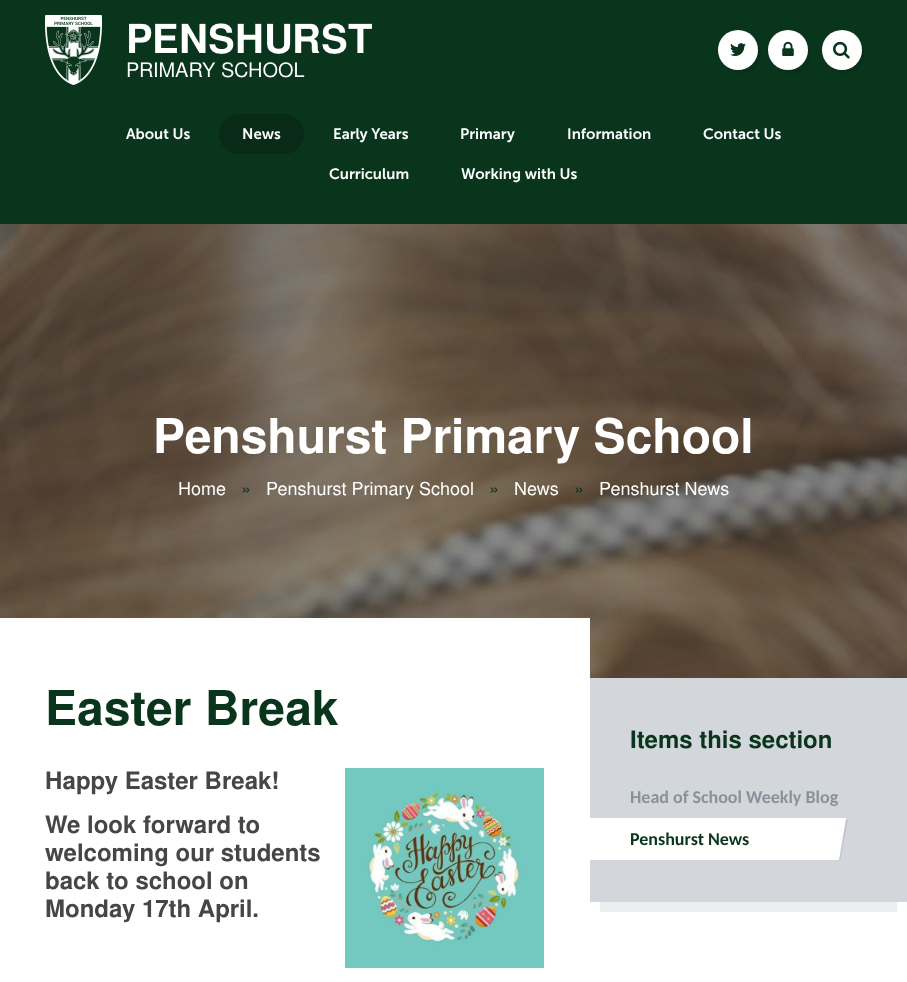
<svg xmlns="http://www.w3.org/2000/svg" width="907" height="982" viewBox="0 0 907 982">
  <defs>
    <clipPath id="clip1"><rect x="590" y="776" width="272" height="84"/></clipPath>
  </defs>
  <rect width="100%" height="100%" fill="rgb(255,255,255)"/>
  <rect x="0" y="0" width="907" height="224" fill="rgb(10,53,29)"/>
  <image x="45" y="15" width="327" height="70" href="pic1.png"/>
  <path d="M723.5 64C726 67.5 729 70.5 733 72.5C753.5 81 770 55.5 755.5 40C767 60.5 740 80.5 723.5 64Z" fill="rgb(9,48,26)"/>
  <circle cx="738" cy="50" r="20" fill="rgb(255,255,255)"/>
  <image x="730" y="43" width="16" height="13" href="pic2.png"/>
  <path d="M773.5 64C776 67.5 779 70.5 783 72.5C803.5 81 820 55.5 805.5 40C817 60.5 790 80.5 773.5 64Z" fill="rgb(9,48,26)"/>
  <circle cx="788" cy="50" r="20" fill="rgb(255,255,255)"/>
  <image x="782" y="41" width="12" height="15" href="pic3.png"/>
  <path d="M827.5 64C830 67.5 833 70.5 837 72.5C857.5 81 874 55.5 859.5 40C871 60.5 844 80.5 827.5 64Z" fill="rgb(9,48,26)"/>
  <circle cx="842" cy="50" r="20" fill="rgb(255,255,255)"/>
  <image x="833" y="41" width="17" height="18" href="pic4.png"/>
  <text x="126" y="139" font-family="'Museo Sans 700'" font-size="15" font-weight="600" fill="rgb(255,255,255)">About Us</text>
  <rect x="219" y="114" width="85" height="40" rx="20" fill="rgb(8,42,23)"/>
  <g font-family="'Museo Sans 700'" font-size="15" font-weight="600" fill="rgb(255,255,255)">
    <text x="242" y="139">News</text>
    <text x="333" y="139">Early Years</text>
    <text x="460" y="139">Primary</text>
    <text x="567" y="139">Information</text>
    <text x="703" y="139">Contact Us</text>
    <text x="329" y="179">Curriculum</text>
    <text x="461" y="179">Working with Us</text>
  </g>
  <image x="0" y="224" width="907" height="454" href="pic5.png"/>
  <text x="153" y="453" font-family="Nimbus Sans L" font-size="48" font-weight="bold" fill="rgb(255,255,255)">Penshurst Primary School</text>
  <text x="178" y="495" font-family="Nimbus Sans L" font-size="18" fill="rgb(255,255,255)">Home</text>
  <text x="241" y="495" font-family="Nimbus Sans L" font-size="18" fill="rgb(10,53,29)">»</text>
  <text x="266" y="495" font-family="Nimbus Sans L" font-size="18" fill="rgb(255,255,255)">Penshurst Primary School</text>
  <text x="489" y="495" font-family="Nimbus Sans L" font-size="18" fill="rgb(10,53,29)">»</text>
  <text x="514" y="495" font-family="Nimbus Sans L" font-size="18" fill="rgb(255,255,255)">News</text>
  <text x="574" y="495" font-family="Nimbus Sans L" font-size="18" fill="rgb(10,53,29)">»</text>
  <text x="599" y="495" font-family="Nimbus Sans L" font-size="18" fill="rgb(255,255,255)">Penshurst News</text>
  <rect x="0" y="618" width="590" height="60" fill="rgb(255,255,255)"/>
  <text x="45" y="725" font-family="Nimbus Sans L" font-size="48" font-weight="bold" fill="rgb(10,53,29)">Easter Break</text>
  <g font-family="Nimbus Sans L" font-size="24" font-weight="bold" fill="rgb(70,70,70)">
    <text>
      <tspan x="45" y="789">Happy Easter Break!</tspan>
      <tspan x="45" y="833">We look forward to</tspan>
      <tspan x="45" y="861">welcoming our students</tspan>
      <tspan x="45" y="889">back to school on</tspan>
      <tspan x="45" y="917">Monday 17th April.</tspan>
    </text>
  </g>
  <image x="345" y="768" width="199" height="200" href="pic6.png"/>
  <rect x="590" y="678" width="317" height="224" fill="rgb(211,215,220)"/>
  <text x="630" y="748" font-family="Nimbus Sans L" font-size="24" font-weight="bold" fill="rgb(10,53,29)">Items this section</text>
  <text x="630" y="803" font-family="Carlito" font-size="18" font-weight="bold" fill="rgb(137,145,155)">Head of School Weekly Blog</text>
  <rect x="590" y="818" width="11" height="42" fill="rgb(255,255,255)"/>
  <g clip-path="url(#clip1)">
    <path d="M596 860V862H840L848 820H846L839 860Z" fill="rgb(194,198,202)"/>
  </g>
  <path d="M601 818H846L839 860H594Z" fill="rgb(255,255,255)"/>
  <text x="630" y="845" font-family="Carlito" font-size="18" font-weight="bold" fill="rgb(10,53,29)">Penshurst News</text>
  <rect x="600" y="902" width="297" height="10" fill="rgb(236,237,238)"/>
</svg>
